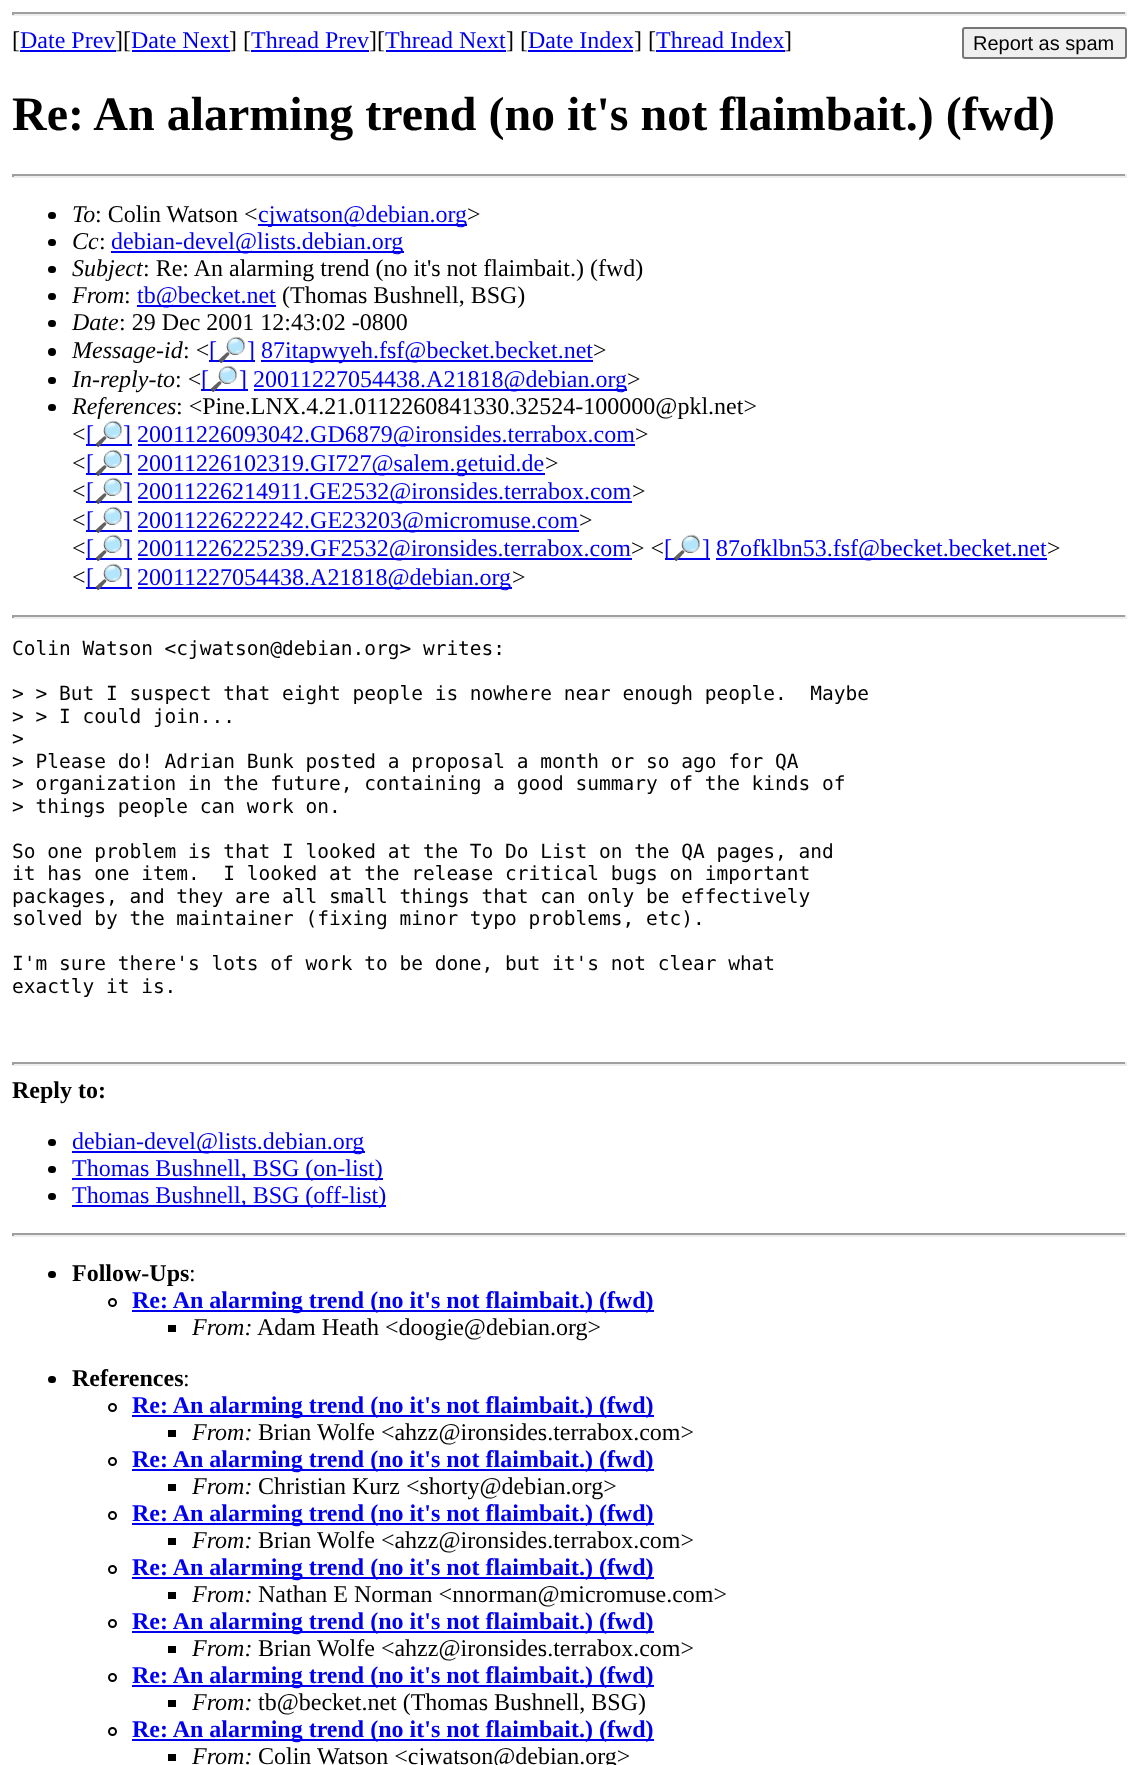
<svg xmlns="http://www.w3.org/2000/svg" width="1138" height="1765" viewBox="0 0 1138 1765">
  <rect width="100%" height="100%" fill="rgb(255,255,255)"/>
  <rect x="12" y="12" width="1115" height="2" fill="rgb(159,159,159)"/>
  <rect x="1125" y="12" width="2" height="3" fill="rgb(238,238,238)"/>
  <rect x="12" y="14" width="1115" height="2" fill="rgb(238,238,238)"/>
  <rect x="12" y="12" width="2" height="3" fill="rgb(159,159,159)"/>
  <text x="12" y="48" font-family="Liberation Serif" font-size="24" fill="rgb(0,0,0)">[</text>
  <text x="20" y="48" font-family="Liberation Serif" font-size="24" fill="rgb(0,0,238)">Date Prev</text>
  <rect x="20" y="50" width="96" height="2" fill="rgb(0,0,238)"/>
  <text x="115" y="48" font-family="Liberation Serif" font-size="24" fill="rgb(0,0,0)">][</text>
  <text x="131" y="48" font-family="Liberation Serif" font-size="24" fill="rgb(0,0,238)">Date Next</text>
  <rect x="132" y="50" width="98" height="2" fill="rgb(0,0,238)"/>
  <text x="229" y="48" font-family="Liberation Serif" font-size="24" fill="rgb(0,0,0)">] [</text>
  <text x="251" y="48" font-family="Liberation Serif" font-size="24" fill="rgb(0,0,238)">Thread Prev</text>
  <rect x="251" y="50" width="118" height="2" fill="rgb(0,0,238)"/>
  <text x="369" y="48" font-family="Liberation Serif" font-size="24" fill="rgb(0,0,0)">][</text>
  <text x="385" y="48" font-family="Liberation Serif" font-size="24" fill="rgb(0,0,238)">Thread Next</text>
  <rect x="386" y="50" width="120" height="2" fill="rgb(0,0,238)"/>
  <text x="506" y="48" font-family="Liberation Serif" font-size="24" fill="rgb(0,0,0)">] [</text>
  <text x="528" y="48" font-family="Liberation Serif" font-size="24" fill="rgb(0,0,238)">Date Index</text>
  <rect x="528" y="50" width="105" height="2" fill="rgb(0,0,238)"/>
  <text x="634" y="48" font-family="Liberation Serif" font-size="24" fill="rgb(0,0,0)">] [</text>
  <text x="656" y="48" font-family="Liberation Serif" font-size="24" fill="rgb(0,0,238)">Thread Index</text>
  <rect x="656" y="50" width="129" height="2" fill="rgb(0,0,238)"/>
  <text x="784" y="48" font-family="Liberation Serif" font-size="24" fill="rgb(0,0,0)">]</text>
  <rect x="963" y="28" width="163" height="30" rx="2" fill="rgb(239,239,239)" stroke="rgb(118,118,118)" stroke-width="2"/>
  <text x="973" y="50" font-family="Liberation Sans" font-size="20" fill="rgb(0,0,0)">Report as spam</text>
  <text x="12" y="130" font-family="Liberation Serif" font-size="48" font-weight="bold" fill="rgb(0,0,0)">Re: An alarming trend (no it's not flaimbait.) (fwd)</text>
  <rect x="12" y="174" width="1115" height="2" fill="rgb(159,159,159)"/>
  <rect x="1125" y="174" width="2" height="3" fill="rgb(238,238,238)"/>
  <rect x="12" y="176" width="1115" height="2" fill="rgb(238,238,238)"/>
  <rect x="12" y="174" width="2" height="3" fill="rgb(159,159,159)"/>
  <rect x="48" y="212" width="8" height="7" rx="3.5" fill="rgb(0,0,0)"/>
  <text x="72" y="222" font-family="Liberation Serif" font-size="24" font-style="italic" fill="rgb(0,0,0)">To</text>
  <text x="95" y="222" font-family="Liberation Serif" font-size="24" fill="rgb(0,0,0)">: Colin Watson &lt;</text>
  <rect x="258" y="224" width="209" height="2" fill="rgb(0,0,238)"/>
  <text x="258" y="222" font-family="Liberation Serif" font-size="24" fill="rgb(0,0,238)">cjwatson@debian.org</text>
  <text x="467" y="222" font-family="Liberation Serif" font-size="24" fill="rgb(0,0,0)">&gt;</text>
  <rect x="48" y="239" width="8" height="7" rx="3.5" fill="rgb(0,0,0)"/>
  <text x="72" y="249" font-family="Liberation Serif" font-size="24" font-style="italic" fill="rgb(0,0,0)">Cc</text>
  <text x="99" y="249" font-family="Liberation Serif" font-size="24" fill="rgb(0,0,0)">:</text>
  <rect x="111" y="251" width="293" height="2" fill="rgb(0,0,238)"/>
  <text x="111" y="249" font-family="Liberation Serif" font-size="24" fill="rgb(0,0,238)">debian-devel@lists.debian.org</text>
  <rect x="48" y="266" width="8" height="7" rx="3.5" fill="rgb(0,0,0)"/>
  <text x="72" y="276" font-family="Liberation Serif" font-size="24" font-style="italic" fill="rgb(0,0,0)">Subject</text>
  <text x="143" y="276" font-family="Liberation Serif" font-size="24" fill="rgb(0,0,0)">: Re: An alarming trend (no it's not flaimbait.) (fwd)</text>
  <rect x="48" y="293" width="8" height="7" rx="3.5" fill="rgb(0,0,0)"/>
  <text x="72" y="303" font-family="Liberation Serif" font-size="24" font-style="italic" fill="rgb(0,0,0)">From</text>
  <text x="124" y="303" font-family="Liberation Serif" font-size="24" fill="rgb(0,0,0)">:</text>
  <rect x="137" y="305" width="139" height="2" fill="rgb(0,0,238)"/>
  <text x="137" y="303" font-family="Liberation Serif" font-size="24" fill="rgb(0,0,238)">tb@becket.net</text>
  <text x="282" y="303" font-family="Liberation Serif" font-size="24" fill="rgb(0,0,0)">(Thomas Bushnell, BSG)</text>
  <rect x="48" y="320" width="8" height="7" rx="3.5" fill="rgb(0,0,0)"/>
  <text x="72" y="330" font-family="Liberation Serif" font-size="24" font-style="italic" fill="rgb(0,0,0)">Date</text>
  <text x="119" y="330" font-family="Liberation Serif" font-size="24" fill="rgb(0,0,0)">: 29 Dec 2001 12:43:02 -0800</text>
  <circle cx="52" cy="352" r="4" fill="rgb(0,0,0)"/>
  <text x="72" y="358" font-family="Liberation Serif" font-size="24" font-style="italic" fill="rgb(0,0,0)">Message-id</text>
  <text x="183" y="358" font-family="Liberation Serif" font-size="24" fill="rgb(0,0,0)">: &lt;</text>
  <rect x="209" y="360" width="46" height="2" fill="rgb(0,0,238)"/>
  <text x="209" y="358" font-family="Liberation Serif" font-size="24" fill="rgb(0,0,238)">[</text>
  <text x="217" y="358" font-family="Noto Color Emoji" font-size="24" fill="rgb(0,0,238)">🔎</text>
  <text x="247" y="358" font-family="Liberation Serif" font-size="24" fill="rgb(0,0,238)">]</text>
  <rect x="261" y="360" width="332" height="2" fill="rgb(0,0,238)"/>
  <text x="261" y="358" font-family="Liberation Serif" font-size="24" fill="rgb(0,0,238)">87itapwyeh.fsf@becket.becket.net</text>
  <text x="593" y="358" font-family="Liberation Serif" font-size="24" fill="rgb(0,0,0)">&gt;</text>
  <rect x="48" y="377" width="8" height="7" rx="3.5" fill="rgb(0,0,0)"/>
  <text x="72" y="387" font-family="Liberation Serif" font-size="24" font-style="italic" fill="rgb(0,0,0)">In-reply-to</text>
  <text x="175" y="387" font-family="Liberation Serif" font-size="24" fill="rgb(0,0,0)">: &lt;</text>
  <rect x="201" y="389" width="47" height="2" fill="rgb(0,0,238)"/>
  <text x="201" y="387" font-family="Liberation Serif" font-size="24" fill="rgb(0,0,238)">[</text>
  <text x="209" y="387" font-family="Noto Color Emoji" font-size="24" fill="rgb(0,0,238)">🔎</text>
  <text x="239" y="387" font-family="Liberation Serif" font-size="24" fill="rgb(0,0,238)">]</text>
  <rect x="254" y="389" width="373" height="2" fill="rgb(0,0,238)"/>
  <text x="253" y="387" font-family="Liberation Serif" font-size="24" fill="rgb(0,0,238)">20011227054438.A21818@debian.org</text>
  <text x="627" y="387" font-family="Liberation Serif" font-size="24" fill="rgb(0,0,0)">&gt;</text>
  <rect x="48" y="404" width="8" height="7" rx="3.5" fill="rgb(0,0,0)"/>
  <text x="72" y="414" font-family="Liberation Serif" font-size="24" font-style="italic" fill="rgb(0,0,0)">References</text>
  <g font-family="Liberation Serif" font-size="24" fill="rgb(0,0,0)">
    <text x="176" y="414">: &lt;Pine.LNX.4.21.0112260841330.32524-100000@pkl.net&gt;</text>
    <text x="72" y="442">&lt;</text>
  </g>
  <rect x="86" y="444" width="46" height="2" fill="rgb(0,0,238)"/>
  <text x="86" y="442" font-family="Liberation Serif" font-size="24" fill="rgb(0,0,238)">[</text>
  <text x="94" y="442" font-family="Noto Color Emoji" font-size="24" fill="rgb(0,0,238)">🔎</text>
  <text x="123" y="442" font-family="Liberation Serif" font-size="24" fill="rgb(0,0,238)">]</text>
  <rect x="138" y="444" width="497" height="2" fill="rgb(0,0,238)"/>
  <text x="137" y="442" font-family="Liberation Serif" font-size="24" fill="rgb(0,0,238)">20011226093042.GD6879@ironsides.terrabox.com</text>
  <g font-family="Liberation Serif" font-size="24" fill="rgb(0,0,0)">
    <text x="635" y="442">&gt;</text>
    <text x="72" y="471">&lt;</text>
  </g>
  <rect x="86" y="473" width="46" height="2" fill="rgb(0,0,238)"/>
  <text x="86" y="471" font-family="Liberation Serif" font-size="24" fill="rgb(0,0,238)">[</text>
  <text x="94" y="471" font-family="Noto Color Emoji" font-size="24" fill="rgb(0,0,238)">🔎</text>
  <text x="123" y="471" font-family="Liberation Serif" font-size="24" fill="rgb(0,0,238)">]</text>
  <rect x="138" y="473" width="407" height="2" fill="rgb(0,0,238)"/>
  <text x="137" y="471" font-family="Liberation Serif" font-size="24" fill="rgb(0,0,238)">20011226102319.GI727@salem.getuid.de</text>
  <g font-family="Liberation Serif" font-size="24" fill="rgb(0,0,0)">
    <text x="545" y="471">&gt;</text>
    <text x="72" y="499">&lt;</text>
  </g>
  <rect x="86" y="501" width="46" height="2" fill="rgb(0,0,238)"/>
  <text x="86" y="499" font-family="Liberation Serif" font-size="24" fill="rgb(0,0,238)">[</text>
  <text x="94" y="499" font-family="Noto Color Emoji" font-size="24" fill="rgb(0,0,238)">🔎</text>
  <text x="123" y="499" font-family="Liberation Serif" font-size="24" fill="rgb(0,0,238)">]</text>
  <rect x="138" y="501" width="494" height="2" fill="rgb(0,0,238)"/>
  <text x="137" y="499" font-family="Liberation Serif" font-size="24" fill="rgb(0,0,238)">20011226214911.GE2532@ironsides.terrabox.com</text>
  <g font-family="Liberation Serif" font-size="24" fill="rgb(0,0,0)">
    <text x="632" y="499">&gt;</text>
    <text x="72" y="528">&lt;</text>
  </g>
  <rect x="86" y="530" width="46" height="2" fill="rgb(0,0,238)"/>
  <text x="86" y="528" font-family="Liberation Serif" font-size="24" fill="rgb(0,0,238)">[</text>
  <text x="94" y="528" font-family="Noto Color Emoji" font-size="24" fill="rgb(0,0,238)">🔎</text>
  <text x="123" y="528" font-family="Liberation Serif" font-size="24" fill="rgb(0,0,238)">]</text>
  <rect x="138" y="530" width="441" height="2" fill="rgb(0,0,238)"/>
  <text x="137" y="528" font-family="Liberation Serif" font-size="24" fill="rgb(0,0,238)">20011226222242.GE23203@micromuse.com</text>
  <g font-family="Liberation Serif" font-size="24" fill="rgb(0,0,0)">
    <text x="579" y="528">&gt;</text>
    <text x="72" y="556">&lt;</text>
  </g>
  <rect x="86" y="558" width="46" height="2" fill="rgb(0,0,238)"/>
  <text x="86" y="556" font-family="Liberation Serif" font-size="24" fill="rgb(0,0,238)">[</text>
  <text x="94" y="556" font-family="Noto Color Emoji" font-size="24" fill="rgb(0,0,238)">🔎</text>
  <text x="123" y="556" font-family="Liberation Serif" font-size="24" fill="rgb(0,0,238)">]</text>
  <rect x="138" y="558" width="494" height="2" fill="rgb(0,0,238)"/>
  <text x="137" y="556" font-family="Liberation Serif" font-size="24" fill="rgb(0,0,238)">20011226225239.GF2532@ironsides.terrabox.com</text>
  <text x="631" y="556" font-family="Liberation Serif" font-size="24" fill="rgb(0,0,0)">&gt; &lt;</text>
  <rect x="665" y="558" width="45" height="2" fill="rgb(0,0,238)"/>
  <text x="664" y="556" font-family="Liberation Serif" font-size="24" fill="rgb(0,0,238)">[</text>
  <text x="672" y="556" font-family="Noto Color Emoji" font-size="24" fill="rgb(0,0,238)">🔎</text>
  <text x="702" y="556" font-family="Liberation Serif" font-size="24" fill="rgb(0,0,238)">]</text>
  <rect x="716" y="558" width="331" height="2" fill="rgb(0,0,238)"/>
  <text x="716" y="556" font-family="Liberation Serif" font-size="24" fill="rgb(0,0,238)">87ofklbn53.fsf@becket.becket.net</text>
  <g font-family="Liberation Serif" font-size="24" fill="rgb(0,0,0)">
    <text x="1047" y="556">&gt;</text>
    <text x="72" y="585">&lt;</text>
  </g>
  <rect x="86" y="587" width="46" height="2" fill="rgb(0,0,238)"/>
  <text x="86" y="585" font-family="Liberation Serif" font-size="24" fill="rgb(0,0,238)">[</text>
  <text x="94" y="585" font-family="Noto Color Emoji" font-size="24" fill="rgb(0,0,238)">🔎</text>
  <text x="123" y="585" font-family="Liberation Serif" font-size="24" fill="rgb(0,0,238)">]</text>
  <rect x="138" y="587" width="374" height="2" fill="rgb(0,0,238)"/>
  <text x="137" y="585" font-family="Liberation Serif" font-size="24" fill="rgb(0,0,238)">20011227054438.A21818@debian.org</text>
  <text x="512" y="585" font-family="Liberation Serif" font-size="24" fill="rgb(0,0,0)">&gt;</text>
  <rect x="12" y="615" width="1115" height="2" fill="rgb(159,159,159)"/>
  <rect x="1125" y="615" width="2" height="3" fill="rgb(238,238,238)"/>
  <rect x="12" y="617" width="1115" height="2" fill="rgb(238,238,238)"/>
  <rect x="12" y="615" width="2" height="3" fill="rgb(159,159,159)"/>
  <g font-family="DejaVu Sans Mono" font-size="19.5" fill="rgb(0,0,0)">
    <text x="12" y="655">Colin Watson &lt;cjwatson@debian.org&gt; writes:</text>
    <text xml:space="preserve"><tspan x="12" y="700">&gt; &gt; But I suspect that eight people is nowhere near enough people.  Maybe</tspan><tspan x="12" y="723">&gt; &gt; I could join...</tspan><tspan x="12" y="745">&gt;</tspan><tspan x="12" y="768">&gt; Please do! Adrian Bunk posted a proposal a month or so ago for QA</tspan><tspan x="12" y="790">&gt; organization in the future, containing a good summary of the kinds of</tspan><tspan x="12" y="813">&gt; things people can work on.</tspan></text>
    <text xml:space="preserve"><tspan x="12" y="858">So one problem is that I looked at the To Do List on the QA pages, and</tspan><tspan x="12" y="880">it has one item.  I looked at the release critical bugs on important</tspan><tspan x="12" y="903">packages, and they are all small things that can only be effectively</tspan><tspan x="12" y="925">solved by the maintainer (fixing minor typo problems, etc).</tspan></text>
    <text>
      <tspan x="12" y="970">I'm sure there's lots of work to be done, but it's not clear what</tspan>
      <tspan x="12" y="993">exactly it is.</tspan>
    </text>
  </g>
  <rect x="12" y="1062" width="1115" height="2" fill="rgb(159,159,159)"/>
  <rect x="1125" y="1062" width="2" height="3" fill="rgb(238,238,238)"/>
  <rect x="12" y="1064" width="1115" height="2" fill="rgb(238,238,238)"/>
  <rect x="12" y="1062" width="2" height="3" fill="rgb(159,159,159)"/>
  <text x="12" y="1098" font-family="Liberation Serif" font-size="24" font-weight="bold" fill="rgb(0,0,0)">Reply to:</text>
  <rect x="48" y="1139" width="8" height="7" rx="3.5" fill="rgb(0,0,0)"/>
  <rect x="72" y="1151" width="293" height="2" fill="rgb(0,0,238)"/>
  <text x="72" y="1149" font-family="Liberation Serif" font-size="24" fill="rgb(0,0,238)">debian-devel@lists.debian.org</text>
  <rect x="48" y="1166" width="8" height="7" rx="3.5" fill="rgb(0,0,0)"/>
  <rect x="72" y="1178" width="311" height="2" fill="rgb(0,0,238)"/>
  <text x="72" y="1176" font-family="Liberation Serif" font-size="24" fill="rgb(0,0,238)">Thomas Bushnell, BSG (on-list)</text>
  <rect x="48" y="1193" width="8" height="7" rx="3.5" fill="rgb(0,0,0)"/>
  <rect x="72" y="1205" width="314" height="2" fill="rgb(0,0,238)"/>
  <text x="72" y="1203" font-family="Liberation Serif" font-size="24" fill="rgb(0,0,238)">Thomas Bushnell, BSG (off-list)</text>
  <rect x="12" y="1233" width="1115" height="2" fill="rgb(159,159,159)"/>
  <rect x="1125" y="1233" width="2" height="3" fill="rgb(238,238,238)"/>
  <rect x="12" y="1235" width="1115" height="2" fill="rgb(238,238,238)"/>
  <rect x="12" y="1233" width="2" height="3" fill="rgb(159,159,159)"/>
  <rect x="48" y="1271" width="8" height="7" rx="3.5" fill="rgb(0,0,0)"/>
  <text x="72" y="1281" font-family="Liberation Serif" font-size="24" font-weight="bold" fill="rgb(0,0,0)">Follow-Ups</text>
  <text x="189" y="1281" font-family="Liberation Serif" font-size="24" fill="rgb(0,0,0)">:</text>
  <circle cx="112.5" cy="1302.5" r="3.5" fill="none" stroke="rgb(0,0,0)" stroke-width="2"/>
  <rect x="132" y="1310" width="522" height="2" fill="rgb(0,0,238)"/>
  <text x="132" y="1308" font-family="Liberation Serif" font-size="24" font-weight="bold" fill="rgb(0,0,238)">Re: An alarming trend (no it's not flaimbait.) (fwd)</text>
  <rect x="168" y="1325" width="8" height="7" fill="rgb(0,0,0)"/>
  <text x="192" y="1335" font-family="Liberation Serif" font-size="24" font-style="italic" fill="rgb(0,0,0)">From:</text>
  <text x="257" y="1335" font-family="Liberation Serif" font-size="24" fill="rgb(0,0,0)">Adam Heath &lt;doogie@debian.org&gt;</text>
  <rect x="48" y="1376" width="8" height="7" rx="3.5" fill="rgb(0,0,0)"/>
  <text x="72" y="1386" font-family="Liberation Serif" font-size="24" font-weight="bold" fill="rgb(0,0,0)">References</text>
  <text x="183" y="1386" font-family="Liberation Serif" font-size="24" fill="rgb(0,0,0)">:</text>
  <circle cx="112.5" cy="1407.5" r="3.5" fill="none" stroke="rgb(0,0,0)" stroke-width="2"/>
  <rect x="132" y="1415" width="522" height="2" fill="rgb(0,0,238)"/>
  <text x="132" y="1413" font-family="Liberation Serif" font-size="24" font-weight="bold" fill="rgb(0,0,238)">Re: An alarming trend (no it's not flaimbait.) (fwd)</text>
  <rect x="168" y="1430" width="8" height="7" fill="rgb(0,0,0)"/>
  <text x="192" y="1440" font-family="Liberation Serif" font-size="24" font-style="italic" fill="rgb(0,0,0)">From:</text>
  <text x="258" y="1440" font-family="Liberation Serif" font-size="24" fill="rgb(0,0,0)">Brian Wolfe &lt;ahzz@ironsides.terrabox.com&gt;</text>
  <circle cx="112.5" cy="1461.5" r="3.5" fill="none" stroke="rgb(0,0,0)" stroke-width="2"/>
  <rect x="132" y="1469" width="522" height="2" fill="rgb(0,0,238)"/>
  <text x="132" y="1467" font-family="Liberation Serif" font-size="24" font-weight="bold" fill="rgb(0,0,238)">Re: An alarming trend (no it's not flaimbait.) (fwd)</text>
  <rect x="168" y="1484" width="8" height="7" fill="rgb(0,0,0)"/>
  <text x="192" y="1494" font-family="Liberation Serif" font-size="24" font-style="italic" fill="rgb(0,0,0)">From:</text>
  <text x="258" y="1494" font-family="Liberation Serif" font-size="24" fill="rgb(0,0,0)">Christian Kurz &lt;shorty@debian.org&gt;</text>
  <circle cx="112.5" cy="1515.5" r="3.5" fill="none" stroke="rgb(0,0,0)" stroke-width="2"/>
  <rect x="132" y="1523" width="522" height="2" fill="rgb(0,0,238)"/>
  <text x="132" y="1521" font-family="Liberation Serif" font-size="24" font-weight="bold" fill="rgb(0,0,238)">Re: An alarming trend (no it's not flaimbait.) (fwd)</text>
  <rect x="168" y="1538" width="8" height="7" fill="rgb(0,0,0)"/>
  <text x="192" y="1548" font-family="Liberation Serif" font-size="24" font-style="italic" fill="rgb(0,0,0)">From:</text>
  <text x="258" y="1548" font-family="Liberation Serif" font-size="24" fill="rgb(0,0,0)">Brian Wolfe &lt;ahzz@ironsides.terrabox.com&gt;</text>
  <circle cx="112.5" cy="1569.5" r="3.5" fill="none" stroke="rgb(0,0,0)" stroke-width="2"/>
  <rect x="132" y="1577" width="522" height="2" fill="rgb(0,0,238)"/>
  <text x="132" y="1575" font-family="Liberation Serif" font-size="24" font-weight="bold" fill="rgb(0,0,238)">Re: An alarming trend (no it's not flaimbait.) (fwd)</text>
  <rect x="168" y="1592" width="8" height="7" fill="rgb(0,0,0)"/>
  <text x="192" y="1602" font-family="Liberation Serif" font-size="24" font-style="italic" fill="rgb(0,0,0)">From:</text>
  <text x="258" y="1602" font-family="Liberation Serif" font-size="24" fill="rgb(0,0,0)">Nathan E Norman &lt;nnorman@micromuse.com&gt;</text>
  <circle cx="112.5" cy="1623.5" r="3.5" fill="none" stroke="rgb(0,0,0)" stroke-width="2"/>
  <rect x="132" y="1631" width="522" height="2" fill="rgb(0,0,238)"/>
  <text x="132" y="1629" font-family="Liberation Serif" font-size="24" font-weight="bold" fill="rgb(0,0,238)">Re: An alarming trend (no it's not flaimbait.) (fwd)</text>
  <rect x="168" y="1646" width="8" height="7" fill="rgb(0,0,0)"/>
  <text x="192" y="1656" font-family="Liberation Serif" font-size="24" font-style="italic" fill="rgb(0,0,0)">From:</text>
  <text x="258" y="1656" font-family="Liberation Serif" font-size="24" fill="rgb(0,0,0)">Brian Wolfe &lt;ahzz@ironsides.terrabox.com&gt;</text>
  <circle cx="112.5" cy="1677.5" r="3.5" fill="none" stroke="rgb(0,0,0)" stroke-width="2"/>
  <rect x="132" y="1685" width="522" height="2" fill="rgb(0,0,238)"/>
  <text x="132" y="1683" font-family="Liberation Serif" font-size="24" font-weight="bold" fill="rgb(0,0,238)">Re: An alarming trend (no it's not flaimbait.) (fwd)</text>
  <rect x="168" y="1700" width="8" height="7" fill="rgb(0,0,0)"/>
  <text x="192" y="1710" font-family="Liberation Serif" font-size="24" font-style="italic" fill="rgb(0,0,0)">From:</text>
  <text x="258" y="1710" font-family="Liberation Serif" font-size="24" fill="rgb(0,0,0)">tb@becket.net (Thomas Bushnell, BSG)</text>
  <circle cx="112.5" cy="1731.5" r="3.5" fill="none" stroke="rgb(0,0,0)" stroke-width="2"/>
  <rect x="132" y="1739" width="522" height="2" fill="rgb(0,0,238)"/>
  <text x="132" y="1737" font-family="Liberation Serif" font-size="24" font-weight="bold" fill="rgb(0,0,238)">Re: An alarming trend (no it's not flaimbait.) (fwd)</text>
  <rect x="168" y="1754" width="8" height="7" fill="rgb(0,0,0)"/>
  <text x="192" y="1764" font-family="Liberation Serif" font-size="24" font-style="italic" fill="rgb(0,0,0)">From:</text>
  <text x="258" y="1764" font-family="Liberation Serif" font-size="24" fill="rgb(0,0,0)">Colin Watson &lt;cjwatson@debian.org&gt;</text>
</svg>
